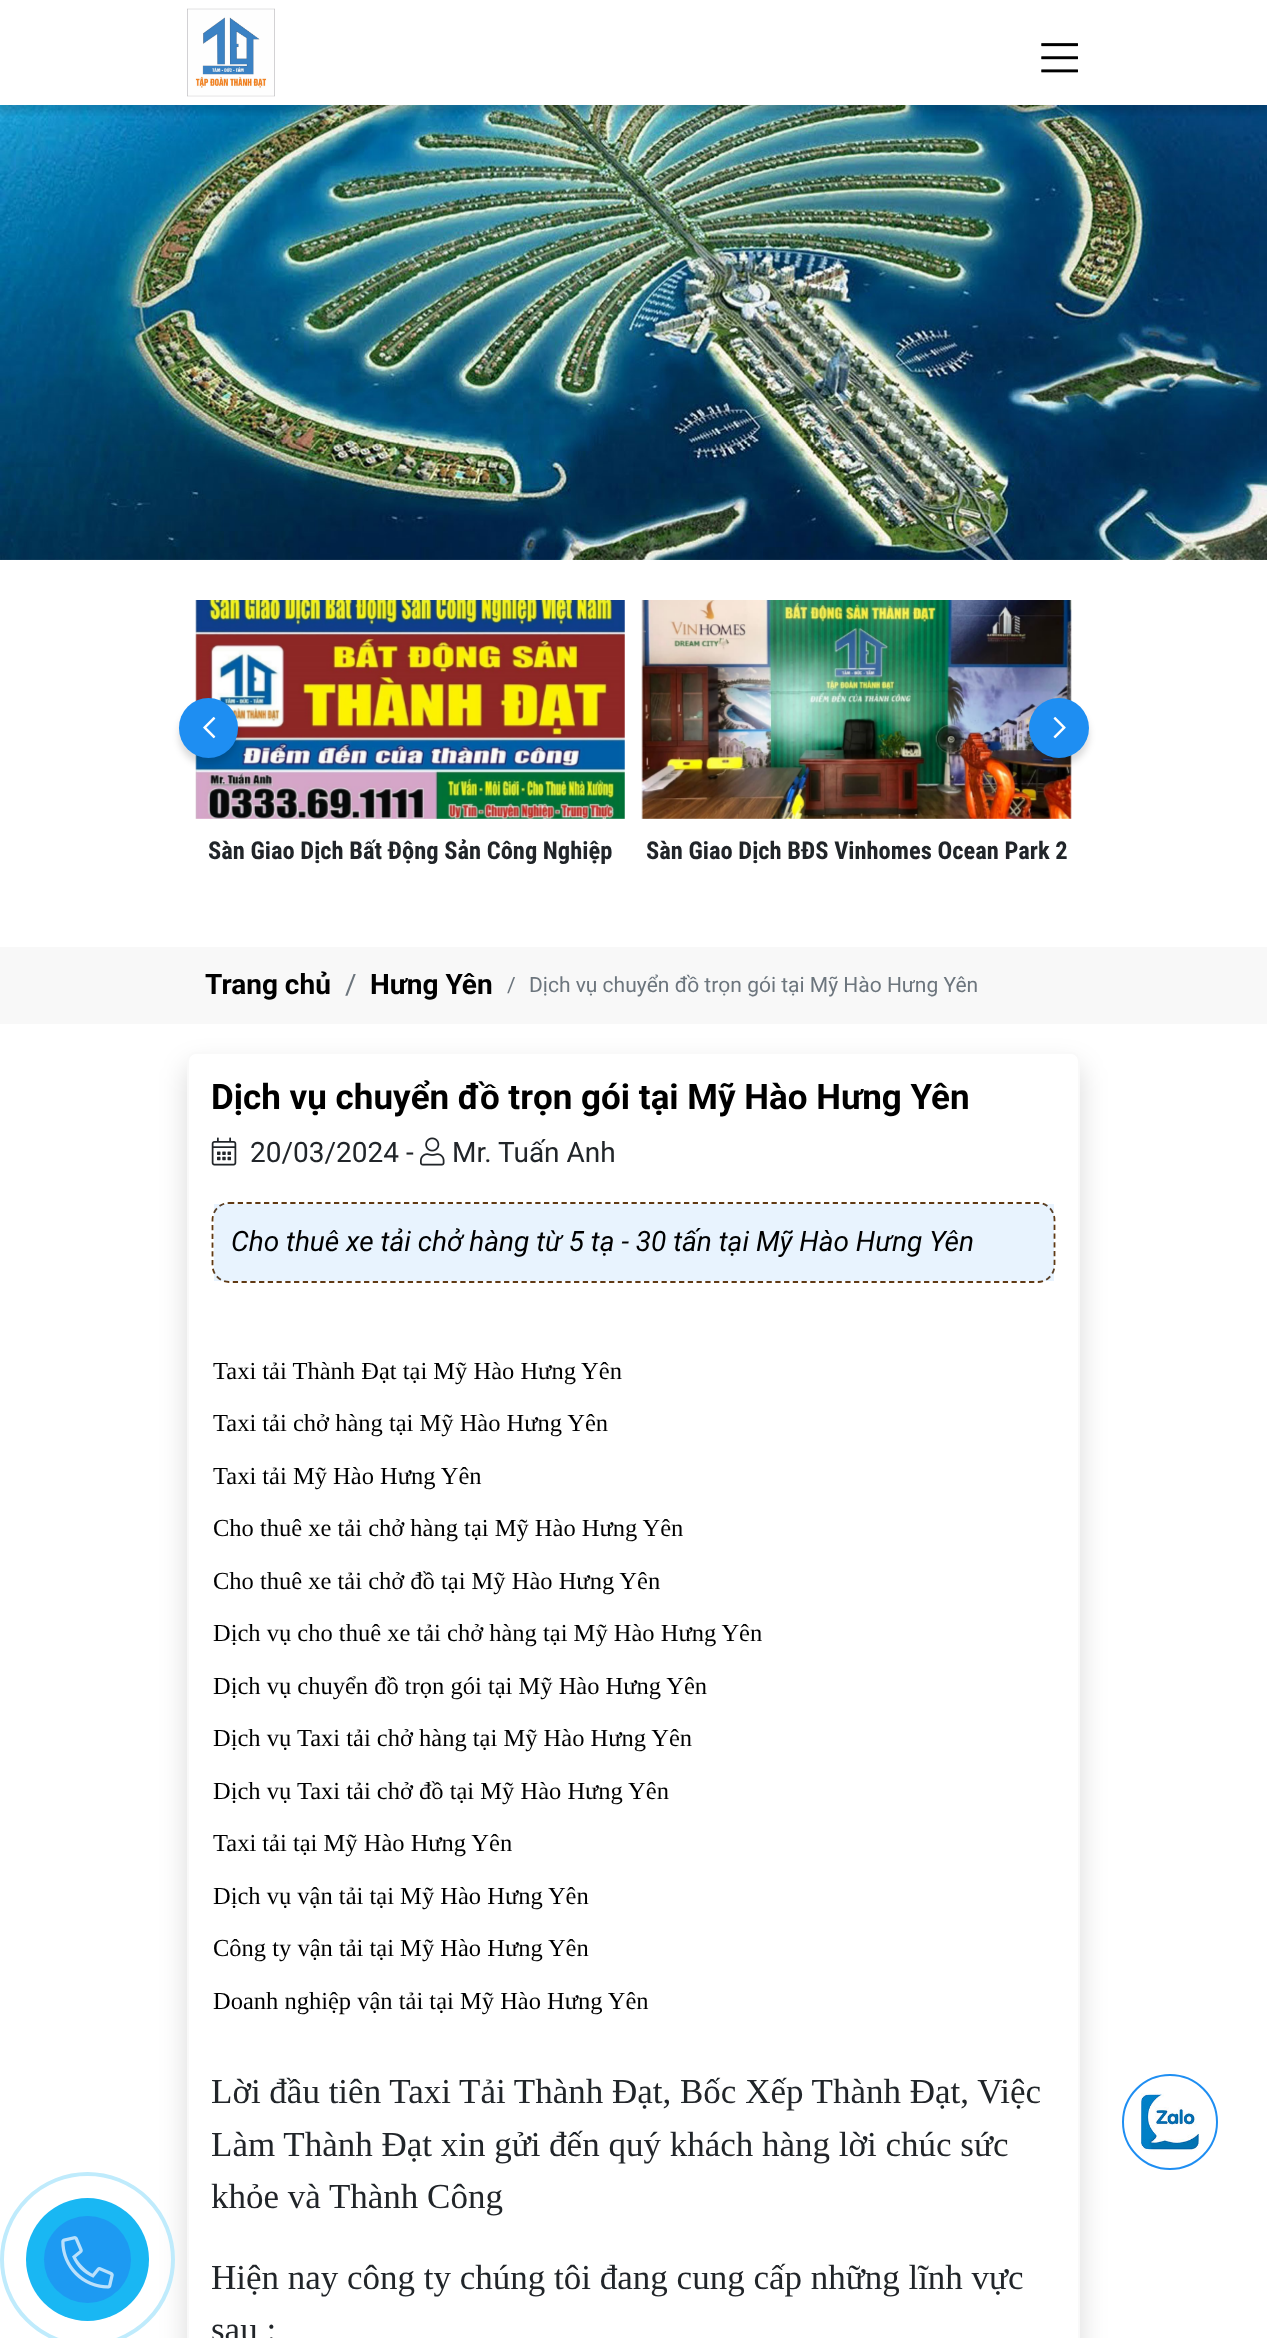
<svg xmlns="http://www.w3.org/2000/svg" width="1267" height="2338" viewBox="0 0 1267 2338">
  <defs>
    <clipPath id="clip1"><rect x="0" y="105" width="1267" height="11"/></clipPath>
  </defs>
  <rect width="100%" height="100%" fill="rgb(255,255,255)"/>
  <image x="0" y="105" width="1267" height="455" href="pic3.png"/>
  <g clip-path="url(#clip1)">
    <rect x="0" y="7" width="1267" height="105" fill="rgba(0,0,0,0.15)" filter="blur(3.5px)"/>
  </g>
  <image x="187" y="8" width="88" height="89" href="pic1.png"/>
  <image x="1041" y="43" width="37" height="30" href="pic2.png"/>
  <image x="195" y="600" width="430" height="219" href="pic6.png"/>
  <rect x="179" y="705" width="59" height="60" rx="29.5" fill="rgba(0,0,0,0.15)" filter="blur(3.5px)"/>
  <rect x="179" y="698" width="59" height="60" rx="29.5" fill="rgb(30,142,242)"/>
  <image x="203" y="717" width="13" height="22" href="pic4.png"/>
  <image x="641" y="600" width="431" height="219" href="pic7.png"/>
  <rect x="1029" y="705" width="60" height="60" rx="30" fill="rgba(0,0,0,0.15)" filter="blur(3.5px)"/>
  <circle cx="1059" cy="728" r="30" fill="rgb(30,142,242)"/>
  <image x="1053" y="717" width="13" height="22" href="pic5.png"/>
  <g font-family="Roboto Condensed" font-size="24.5" font-weight="bold" fill="rgb(33,37,41)">
    <text x="208" y="859">Sàn Giao Dịch Bất Động Sản Công Nghiệp</text>
    <text x="646" y="859">Sàn Giao Dịch BĐS Vinhomes Ocean Park 2</text>
  </g>
  <rect x="0" y="947" width="1267" height="77" fill="rgb(248,248,248)"/>
  <text x="205" y="994" font-family="Roboto" font-size="28" font-weight="bold" fill="rgb(0,0,0)">Trang chủ</text>
  <text x="345" y="994" font-family="Roboto" font-size="28" fill="rgb(108,117,125)">/</text>
  <text x="370" y="994" font-family="Roboto" font-size="28" font-weight="bold" fill="rgb(0,0,0)">Hưng Yên</text>
  <g font-family="Roboto" font-size="21" fill="rgb(108,117,125)">
    <text x="507" y="992">/</text>
    <text x="529" y="992">Dịch vụ chuyển đồ trọn gói tại Mỹ Hào Hưng Yên</text>
  </g>
  <rect x="187" y="1066" width="893" height="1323" rx="9" fill="rgba(0,0,0,0.15)" filter="blur(14px)"/>
  <rect x="188" y="1053" width="891" height="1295" rx="8" fill="rgb(255,255,255)" stroke="rgb(249,249,249)" stroke-width="2"/>
  <text x="211" y="1109" font-family="Roboto" font-size="35" font-weight="bold" fill="rgb(0,0,0)">Dịch vụ chuyển đồ trọn gói tại Mỹ Hào Hưng Yên</text>
  <image x="211" y="1137" width="26" height="29" href="pic8.png"/>
  <text x="250" y="1162" font-family="Roboto" font-size="28" fill="rgb(33,37,41)">20/03/2024 -</text>
  <image x="420" y="1137" width="25" height="29" href="pic9.png"/>
  <text x="452" y="1162" font-family="Roboto" font-size="28" fill="rgb(33,37,41)">Mr. Tuấn Anh</text>
  <path d="M229 1203H1038C1047 1203 1054.5 1210.5 1054.5 1220V1265C1054.5 1274.5 1047 1282 1038 1282H229C220 1282 212.5 1274.5 212.5 1265V1220C212.5 1210.5 220 1203 229 1203Z" fill="none" stroke="rgb(96,57,19)" stroke-width="1.8" stroke-dasharray="5.25 3.5"/>
  <rect x="214" y="1204" width="840" height="77" fill="rgba(30,142,242,0.1)"/>
  <text x="231" y="1251" font-family="Roboto" font-size="28" font-style="italic" fill="rgb(0,0,0)">Cho thuê xe tải chở hàng từ 5 tạ - 30 tấn tại Mỹ Hào Hưng Yên</text>
  <g font-family="Liberation Serif" font-size="24.5" fill="rgb(0,0,0)">
    <text x="213" y="1379">Taxi tải Thành Đạt tại Mỹ Hào Hưng Yên</text>
    <text x="213" y="1431">Taxi tải chở hàng tại Mỹ Hào Hưng Yên</text>
    <text x="213" y="1484">Taxi tải Mỹ Hào Hưng Yên</text>
    <text x="213" y="1536">Cho thuê xe tải chở hàng tại Mỹ Hào Hưng Yên</text>
    <text x="213" y="1589">Cho thuê xe tải chở đồ tại Mỹ Hào Hưng Yên</text>
    <text x="213" y="1641">Dịch vụ cho thuê xe tải chở hàng tại Mỹ Hào Hưng Yên</text>
    <text x="213" y="1694">Dịch vụ chuyển đồ trọn gói tại Mỹ Hào Hưng Yên</text>
    <text x="213" y="1746">Dịch vụ Taxi tải chở hàng tại Mỹ Hào Hưng Yên</text>
    <text x="213" y="1799">Dịch vụ Taxi tải chở đồ tại Mỹ Hào Hưng Yên</text>
    <text x="213" y="1851">Taxi tải tại Mỹ Hào Hưng Yên</text>
    <text x="213" y="1904">Dịch vụ vận tải tại Mỹ Hào Hưng Yên</text>
    <text x="213" y="1956">Công ty vận tải tại Mỹ Hào Hưng Yên</text>
    <text x="213" y="2009">Doanh nghiệp vận tải tại Mỹ Hào Hưng Yên</text>
  </g>
  <g font-family="Liberation Serif" font-size="35" fill="rgb(33,37,41)">
    <text>
      <tspan x="211" y="2103">Lời đầu tiên Taxi Tải Thành Đạt, Bốc Xếp Thành Đạt, Việc</tspan>
      <tspan x="211" y="2156">Làm Thành Đạt xin gửi đến quý khách hàng lời chúc sức</tspan>
      <tspan x="211" y="2208">khỏe và Thành Công</tspan>
    </text>
    <text>
      <tspan x="211" y="2289">Hiện nay công ty chúng tôi đang cung cấp những lĩnh vực</tspan>
      <tspan x="211" y="2341">sau :</tspan>
    </text>
  </g>
  <circle cx="1170" cy="2122" r="47" fill="none" stroke="rgb(30,142,242)" stroke-width="2"/>
  <image x="1141" y="2093" width="58" height="58" href="pic10.png"/>
  <circle cx="87.5" cy="2259.5" r="85.5" fill="none" stroke="rgb(191,235,252)" stroke-width="4"/>
  <circle cx="87.5" cy="2259.5" r="61.5" fill="rgb(25,183,243)"/>
  <circle cx="87.5" cy="2259.5" r="43.5" fill="rgb(29,154,242)"/>
  <image x="61" y="2236" width="53" height="53" href="pic11.png"/>
</svg>
